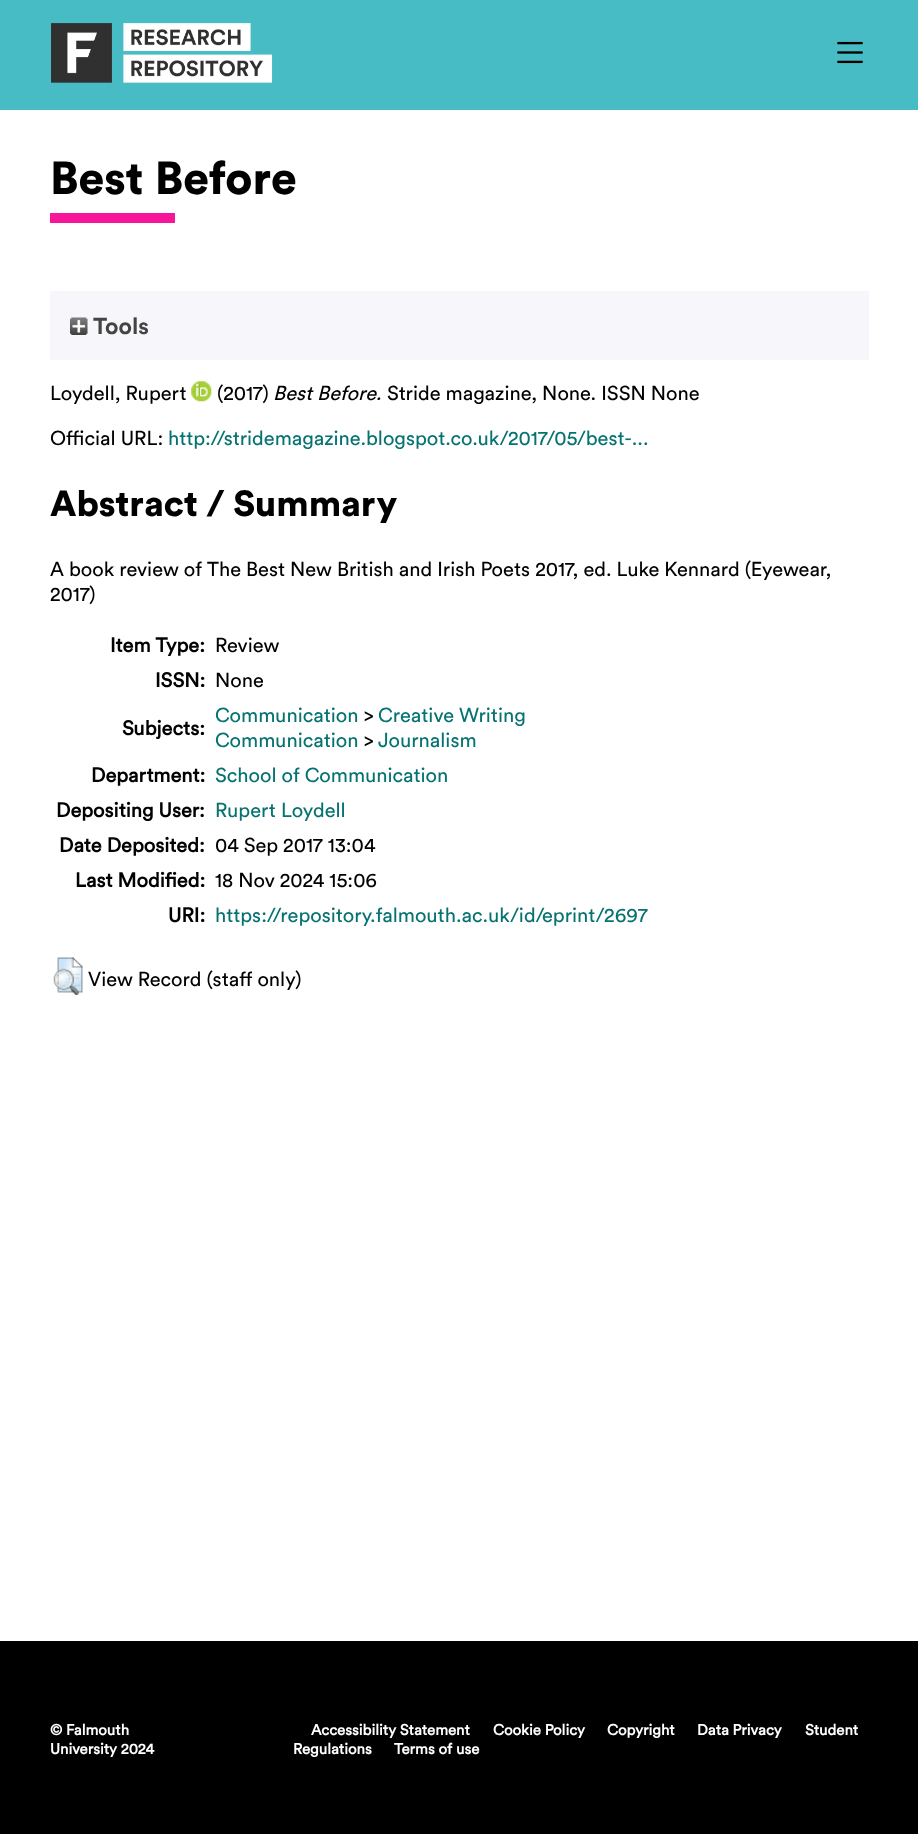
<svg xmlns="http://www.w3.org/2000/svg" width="918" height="1834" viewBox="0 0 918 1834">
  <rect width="100%" height="100%" fill="rgb(255,255,255)"/>
  <rect x="0" y="0" width="918" height="110" fill="rgb(72,188,196)"/>
  <image x="51" y="23" width="222" height="60" href="pic1.png"/>
  <image x="837" y="41" width="26" height="23" href="pic2.png"/>
  <text x="50" y="194" font-family="Circular" font-size="46" font-weight="900" fill="rgb(0,0,0)">Best Before</text>
  <rect x="50" y="213" width="125" height="10" fill="rgb(247,21,153)"/>
  <rect x="50" y="291" width="819" height="69" fill="rgb(246,246,251)"/>
  <image x="70" y="317" width="18" height="18" href="pic3.png"/>
  <text x="93" y="334" font-family="Circular" font-size="23" font-weight="bold" fill="rgb(68,68,68)">Tools</text>
  <text x="50" y="400" font-family="Circular" font-size="20" fill="rgb(0,0,0)">Loydell, Rupert</text>
  <image x="191" y="381" width="21" height="21" href="pic4.png"/>
  <text x="217" y="400" font-family="Circular" font-size="20" fill="rgb(0,0,0)">(2017)</text>
  <text x="273" y="400" font-family="Circular" font-size="20" font-style="italic" fill="rgb(0,0,0)">Best Before.</text>
  <g font-family="Circular" font-size="20" fill="rgb(0,0,0)">
    <text x="387" y="400">Stride magazine, None. ISSN None</text>
    <text x="50" y="445">Official URL:</text>
  </g>
  <text x="168" y="445" font-family="Circular" font-size="20" fill="rgb(7,114,114)">http://stridemagazine.blogspot.co.uk/2017/05/best-...</text>
  <text x="50" y="516" font-family="Circular" font-size="36" font-weight="900" fill="rgb(0,0,0)">Abstract / Summary</text>
  <g font-family="Circular" font-size="20" fill="rgb(0,0,0)">
    <text>
      <tspan x="50" y="576">A book review of The Best New British and Irish Poets 2017, ed. Luke Kennard (Eyewear,</tspan>
      <tspan x="50" y="601">2017)</tspan>
    </text>
  </g>
  <text x="110" y="652" font-family="'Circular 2'" font-size="20" font-weight="bold" fill="rgb(0,0,0)">Item Type:</text>
  <text x="215" y="652" font-family="Circular" font-size="20" fill="rgb(0,0,0)">Review</text>
  <text x="155" y="687" font-family="'Circular 2'" font-size="20" font-weight="bold" fill="rgb(0,0,0)">ISSN:</text>
  <text x="215" y="687" font-family="Circular" font-size="20" fill="rgb(0,0,0)">None</text>
  <text x="122" y="735" font-family="'Circular 2'" font-size="20" font-weight="bold" fill="rgb(0,0,0)">Subjects:</text>
  <text x="215" y="722" font-family="Circular" font-size="20" fill="rgb(7,114,114)">Communication</text>
  <text x="364" y="722" font-family="Circular" font-size="20" fill="rgb(0,0,0)">&gt;</text>
  <g font-family="Circular" font-size="20" fill="rgb(7,114,114)">
    <text x="378" y="722">Creative Writing</text>
    <text x="215" y="747">Communication</text>
  </g>
  <text x="364" y="747" font-family="Circular" font-size="20" fill="rgb(0,0,0)">&gt;</text>
  <text x="378" y="747" font-family="Circular" font-size="20" fill="rgb(7,114,114)">Journalism</text>
  <text x="91" y="782" font-family="'Circular 2'" font-size="20" font-weight="bold" fill="rgb(0,0,0)">Department:</text>
  <text x="215" y="782" font-family="Circular" font-size="20" fill="rgb(7,114,114)">School of Communication</text>
  <text x="56" y="817" font-family="'Circular 2'" font-size="20" font-weight="bold" fill="rgb(0,0,0)">Depositing User:</text>
  <text x="215" y="817" font-family="Circular" font-size="20" fill="rgb(7,114,114)">Rupert Loydell</text>
  <text x="59" y="852" font-family="'Circular 2'" font-size="20" font-weight="bold" fill="rgb(0,0,0)">Date Deposited:</text>
  <text x="215" y="852" font-family="Circular" font-size="20" fill="rgb(0,0,0)">04 Sep 2017 13:04</text>
  <text x="75" y="887" font-family="'Circular 2'" font-size="20" font-weight="bold" fill="rgb(0,0,0)">Last Modified:</text>
  <text x="215" y="887" font-family="Circular" font-size="20" fill="rgb(0,0,0)">18 Nov 2024 15:06</text>
  <text x="168" y="922" font-family="'Circular 2'" font-size="20" font-weight="bold" fill="rgb(0,0,0)">URI:</text>
  <text x="215" y="922" font-family="Circular" font-size="20" fill="rgb(7,114,114)">https://repository.falmouth.ac.uk/id/eprint/2697</text>
  <image x="53" y="957" width="30" height="38" href="pic5.png"/>
  <text x="88" y="986" font-family="Circular" font-size="20" fill="rgb(0,0,0)">View Record (staff only)</text>
  <rect x="0" y="1641" width="918" height="193" fill="rgb(0,0,0)"/>
  <g font-family="'Circular 2'" font-size="15" font-weight="bold" fill="rgb(255,255,255)">
    <text>
      <tspan x="50" y="1735">© Falmouth</tspan>
      <tspan x="50" y="1754">University 2024</tspan>
    </text>
    <text x="311" y="1735">Accessibility Statement</text>
    <text x="493" y="1735">Cookie Policy</text>
    <text x="607" y="1735">Copyright</text>
    <text x="697" y="1735">Data Privacy</text>
    <text x="805" y="1735">Student</text>
    <text x="293" y="1754">Regulations</text>
    <text x="394" y="1754">Terms of use</text>
  </g>
</svg>
